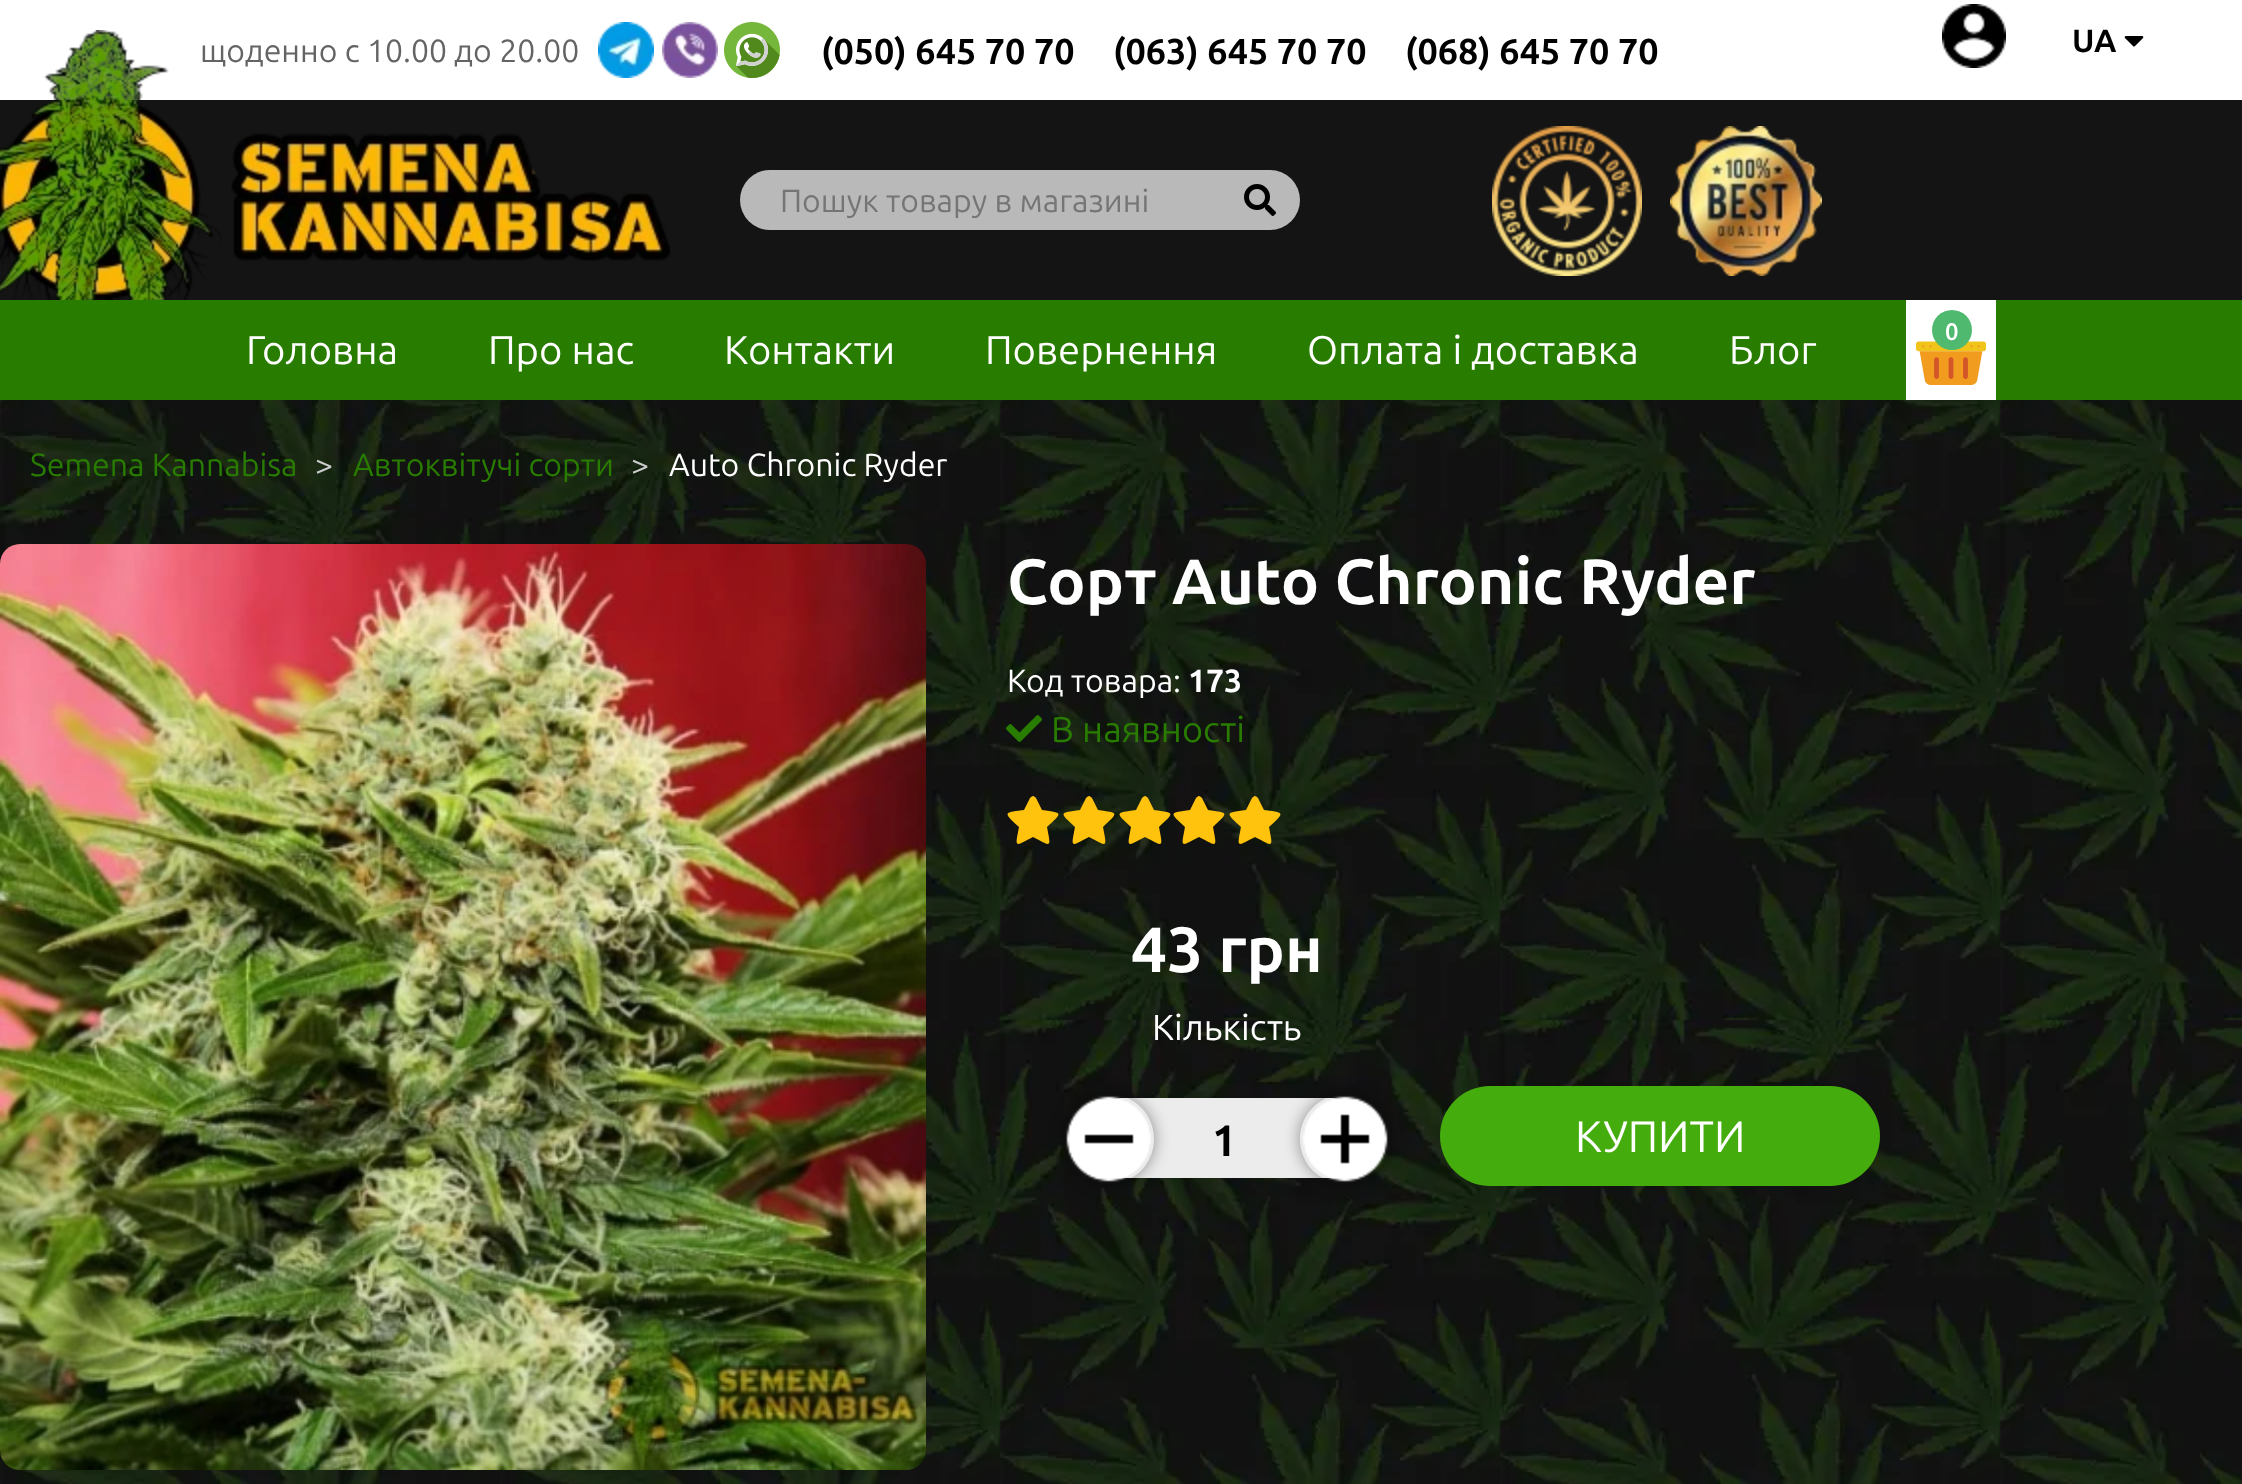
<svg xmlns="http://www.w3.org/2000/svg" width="2242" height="1484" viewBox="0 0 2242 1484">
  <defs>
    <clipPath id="clip1"><path d="M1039 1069H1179V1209H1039ZM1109 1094C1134 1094 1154 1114 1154 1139C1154 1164 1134 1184 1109 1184C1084 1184 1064 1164 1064 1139C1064 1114 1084 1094 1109 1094Z" clip-rule="evenodd"/></clipPath>
    <clipPath id="clip2"><path d="M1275 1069H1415V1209H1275ZM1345 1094C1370 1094 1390 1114 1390 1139C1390 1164 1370 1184 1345 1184C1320 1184 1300 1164 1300 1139C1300 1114 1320 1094 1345 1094Z" clip-rule="evenodd"/></clipPath>
  </defs>
  <rect width="100%" height="100%" fill="rgb(255,255,255)"/>
  <image x="0" y="400" width="2242" height="1084" href="pic1.png"/>
  <text x="200" y="62" font-family="Ubuntu" font-size="32" fill="rgb(100,100,100)">щоденно c 10.00 до 20.00</text>
  <image x="598" y="22" width="56" height="56" href="pic2.png"/>
  <image x="662" y="22" width="56" height="56" href="pic3.png"/>
  <image x="724" y="22" width="56" height="56" href="pic4.png"/>
  <g font-family="Ubuntu" font-size="36" font-weight="bold" fill="rgb(0,0,0)">
    <text x="821" y="64">(050) 645 70 70</text>
    <text x="1113" y="64">(063) 645 70 70</text>
    <text x="1405" y="64">(068) 645 70 70</text>
  </g>
  <image x="1942" y="4" width="64" height="64" href="pic5.png"/>
  <text x="2072" y="52" font-family="Ubuntu" font-size="32" font-weight="bold" fill="rgb(0,0,0)">UA</text>
  <image x="2124" y="36" width="20" height="11" href="pic6.png"/>
  <rect x="0" y="100" width="2242" height="200" fill="rgb(20,20,20)"/>
  <image x="0" y="30" width="670" height="270" href="pic7.png"/>
  <rect x="740" y="170" width="560" height="60" rx="30" fill="rgb(185,185,185)"/>
  <text x="780" y="212" font-family="Ubuntu" font-size="32" fill="rgb(117,117,117)">Пошук товару в магазині</text>
  <image x="1244" y="184" width="32" height="32" href="pic8.png"/>
  <image x="1492" y="126" width="150" height="150" href="pic9.png"/>
  <image x="1670" y="126" width="152" height="150" href="pic10.png"/>
  <rect x="0" y="300" width="2242" height="100" fill="rgb(40,124,0)"/>
  <rect x="1906" y="300" width="90" height="100" fill="rgb(255,255,255)"/>
  <image x="1916" y="341" width="70" height="44" href="pic11.png"/>
  <circle cx="1952" cy="330" r="20" fill="rgb(79,186,111)"/>
  <text x="1945" y="340" font-family="Ubuntu" font-size="24" font-weight="600" fill="rgb(255,255,255)">0</text>
  <g font-family="Ubuntu" font-size="40" fill="rgb(255,255,255)">
    <text x="246" y="364">Головна</text>
    <text x="488" y="364">Про нас</text>
    <text x="724" y="364">Контакти</text>
    <text x="985" y="364">Повернення</text>
    <text x="1307" y="364">Оплата і доставка</text>
    <text x="1729" y="364">Блог</text>
  </g>
  <text x="30" y="476" font-family="Ubuntu" font-size="32" fill="rgb(40,124,0)">Semena Kannabisa</text>
  <text x="315" y="476" font-family="Ubuntu" font-size="32" fill="rgb(204,204,204)">&gt;</text>
  <text x="353" y="476" font-family="Ubuntu" font-size="32" fill="rgb(40,124,0)">Автоквітучі сорти</text>
  <text x="631" y="476" font-family="Ubuntu" font-size="32" fill="rgb(204,204,204)">&gt;</text>
  <text x="669" y="476" font-family="Ubuntu" font-size="32" fill="rgb(255,255,255)">Auto Chronic Ryder</text>
  <image x="0" y="544" width="926" height="926" href="pic12.png"/>
  <text x="1007" y="604" font-family="Ubuntu" font-size="64" font-weight="bold" fill="rgb(255,255,255)">Сорт Auto Chronic Ryder</text>
  <text x="1007" y="692" font-family="Ubuntu" font-size="32" fill="rgb(255,255,255)">Код товара:</text>
  <text x="1188" y="692" font-family="Ubuntu" font-size="32" font-weight="bold" fill="rgb(255,255,255)">173</text>
  <image x="1006" y="715" width="36" height="27" href="pic13.png"/>
  <text x="1051" y="742" font-family="Ubuntu" font-size="36" fill="rgb(40,124,0)">В наявності</text>
  <path d="M1030 798C1031 797 1032 796 1033 796C1034 796 1035 797 1036 798L1042 810C1063 813 1063 812 1047 827C1051 848 1052 847 1033 837C1014 847 1015 848 1019 827C1003 812 1003 813 1024 810Z" fill="rgb(255,195,13)"/>
  <path d="M1086 798C1087 797 1088 796 1089 796C1090 796 1091 797 1092 798L1098 810C1119 813 1119 812 1103 827C1107 848 1108 847 1089 837C1070 847 1071 848 1075 827C1059 812 1059 813 1080 810Z" fill="rgb(255,195,13)"/>
  <path d="M1142 798C1143 797 1144 796 1145 796C1146 796 1147 797 1148 798L1154 810C1175 813 1175 812 1159 827C1163 848 1164 847 1145 837C1126 847 1127 848 1131 827C1115 812 1115 813 1136 810Z" fill="rgb(255,195,13)"/>
  <path d="M1196 798C1197 797 1198 796 1199 796C1200 796 1201 797 1202 798L1208 810C1229 813 1229 812 1213 827C1217 848 1218 847 1199 837C1180 847 1181 848 1185 827C1169 812 1169 813 1190 810Z" fill="rgb(255,195,13)"/>
  <path d="M1252 798C1253 797 1254 796 1255 796C1256 796 1257 797 1258 798L1264 810C1285 813 1285 812 1269 827C1273 848 1274 847 1255 837C1236 847 1237 848 1241 827C1225 812 1225 813 1246 810Z" fill="rgb(255,195,13)"/>
  <text x="1131" y="972" font-family="Ubuntu" font-size="64" font-weight="bold" fill="rgb(255,255,255)">43 грн</text>
  <text x="1152" y="1040" font-family="Ubuntu" font-size="36" fill="rgb(255,255,255)">Кількість</text>
  <rect x="1082" y="1098" width="290" height="80" rx="40" fill="rgb(236,236,236)"/>
  <g clip-path="url(#clip1)">
    <rect x="1064" y="1094" width="90" height="90" rx="45" fill="rgba(0,0,0,0.4)" filter="blur(8px)"/>
  </g>
  <image x="1066" y="1096" width="85" height="86" href="pic14.png"/>
  <text x="1212" y="1156" font-family="Ubuntu" font-size="44" font-weight="bold" fill="rgb(0,0,0)">1</text>
  <g clip-path="url(#clip2)">
    <rect x="1300" y="1094" width="90" height="90" rx="45" fill="rgba(0,0,0,0.4)" filter="blur(8px)"/>
  </g>
  <image x="1303" y="1096" width="85" height="86" href="pic15.png"/>
  <rect x="1440" y="1086" width="440" height="100" rx="50" fill="rgb(69,172,13)"/>
  <text x="1575" y="1152" font-family="Ubuntu" font-size="44" fill="rgb(255,255,255)">КУПИТИ</text>
</svg>
